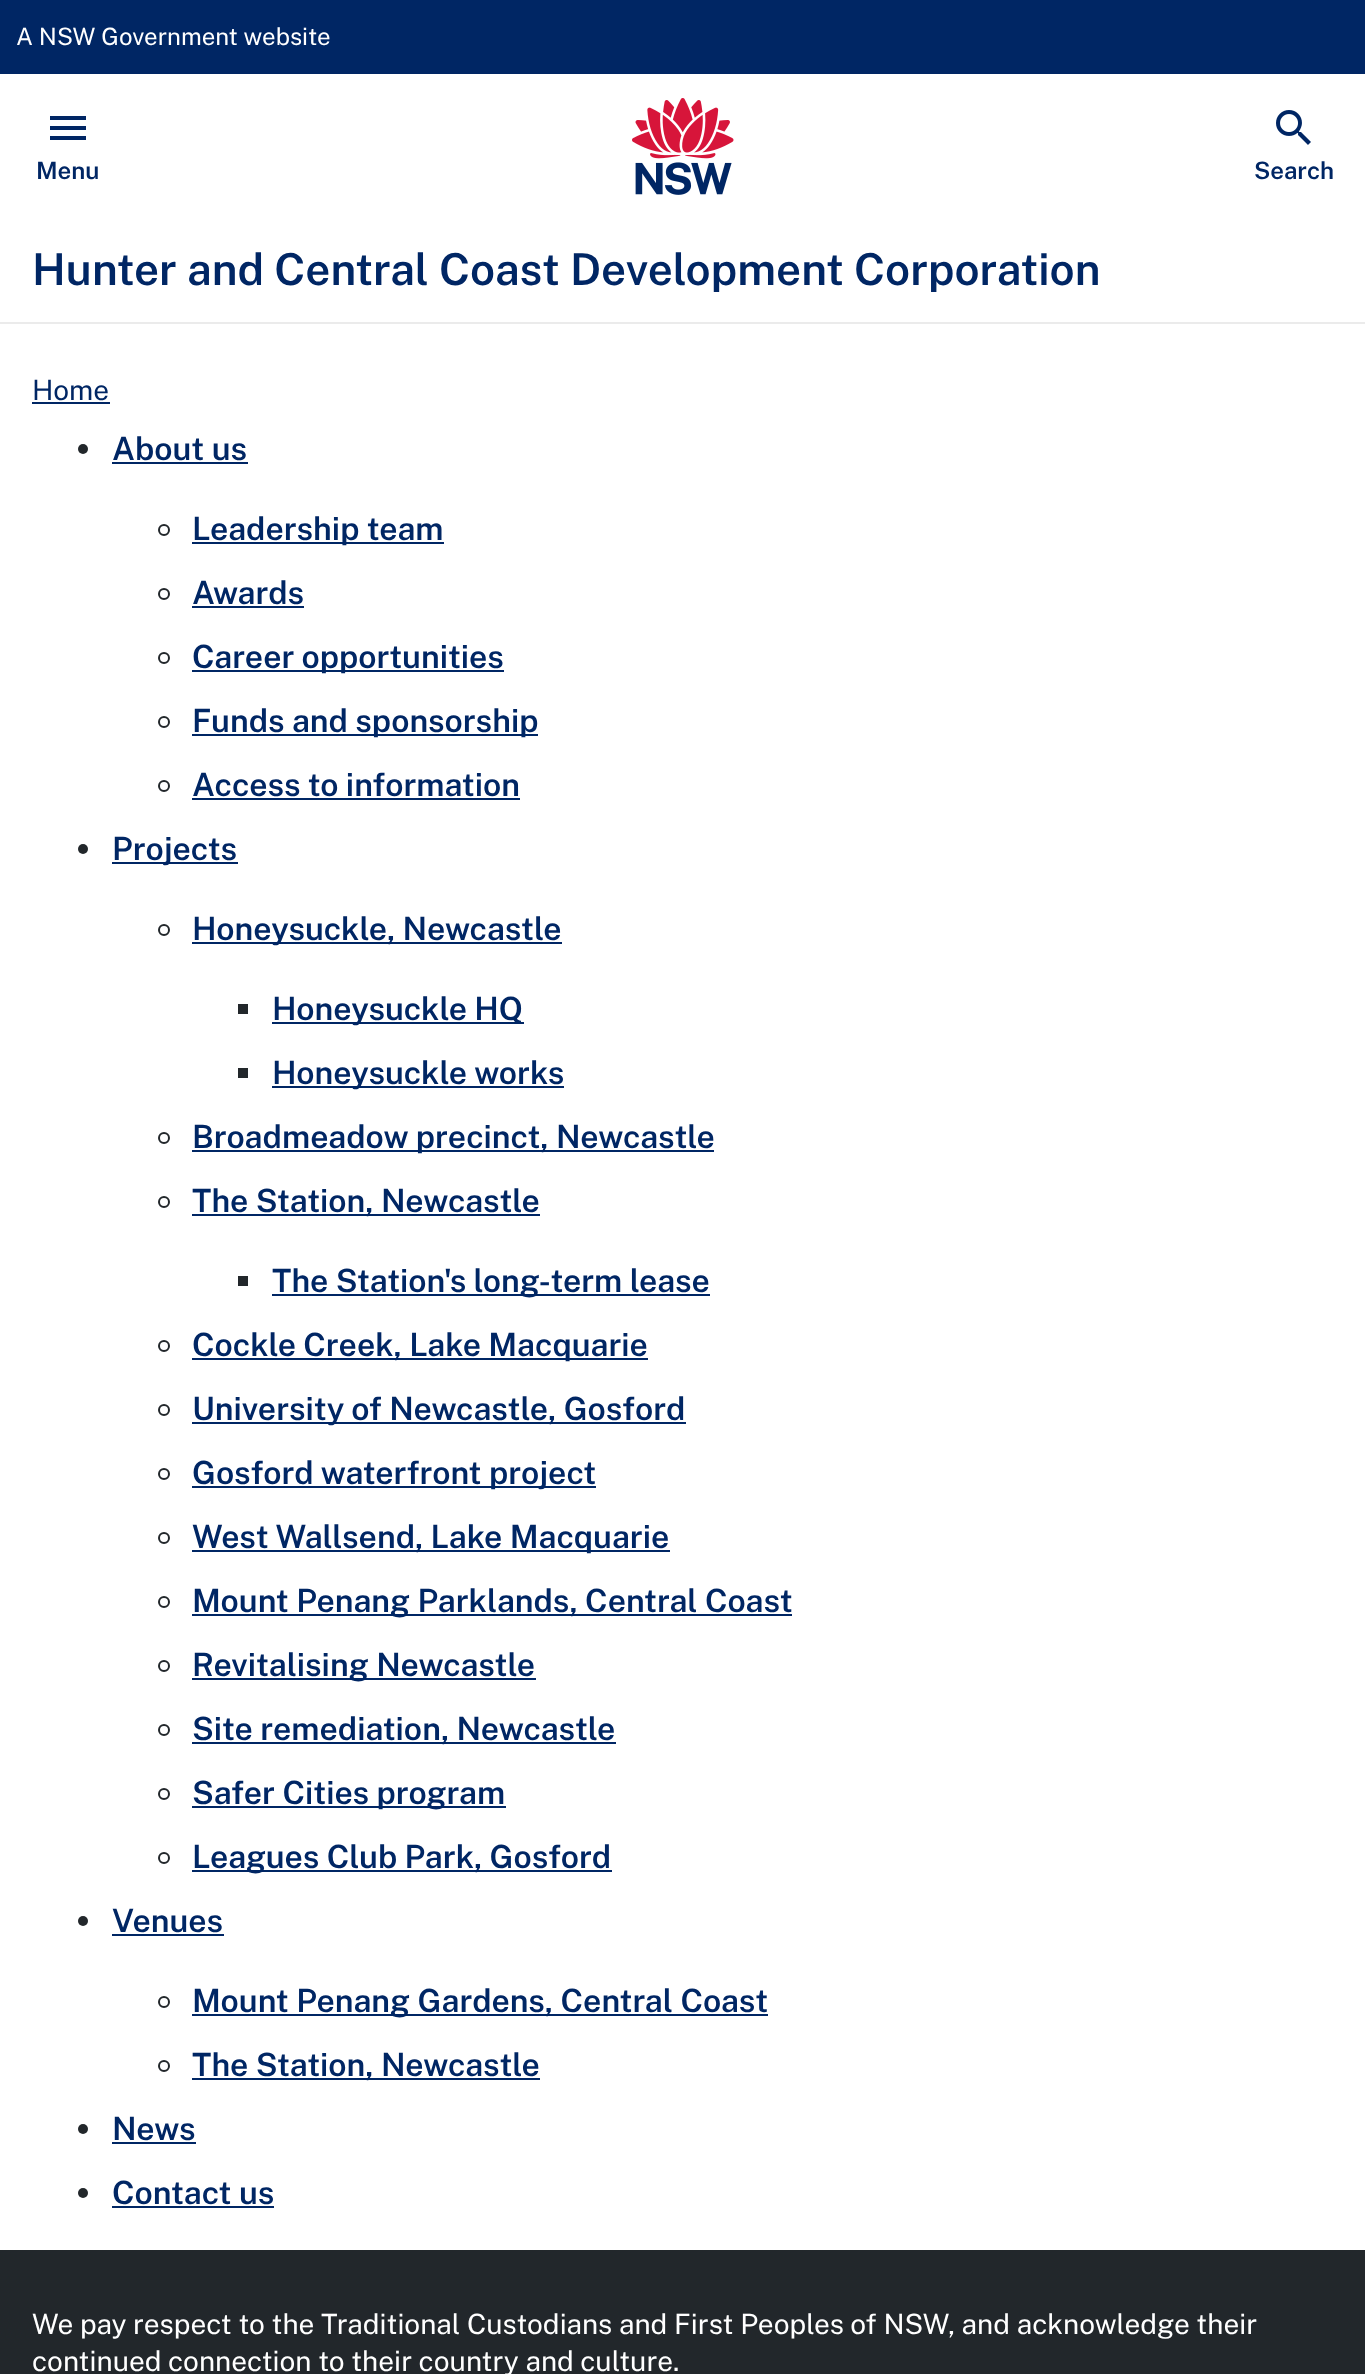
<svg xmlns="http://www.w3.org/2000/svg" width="1365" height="2374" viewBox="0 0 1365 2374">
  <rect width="100%" height="100%" fill="rgb(255,255,255)"/>
  <rect x="0" y="0" width="1365" height="74" fill="rgb(0,38,100)"/>
  <text x="16" y="45" font-family="Public Sans" font-size="24" fill="rgb(255,255,255)">A NSW Government website</text>
  <rect x="0" y="322" width="1365" height="2" fill="rgb(235,235,235)"/>
  <path d="M50 116H86V120H50ZM50 130V126H86V130ZM50 140V136H86V140Z" fill="rgb(0,38,100)"/>
  <text x="36" y="179" font-family="Public Sans" font-size="24" font-weight="600" fill="rgb(0,38,100)">Menu</text>
  <image x="1276" y="110" width="35" height="35" href="pic1.png"/>
  <text x="1254" y="179" font-family="Public Sans" font-size="24" font-weight="600" fill="rgb(0,38,100)">Search</text>
  <image x="632" y="98" width="102" height="97" href="pic2.png"/>
  <text x="32" y="285" font-family="Public Sans" font-size="44" font-weight="600" fill="rgb(0,38,100)">Hunter and Central Coast Development Corporation</text>
  <text x="32" y="400" font-family="Public Sans" font-size="28" fill="rgb(0,38,100)">Home</text>
  <rect x="32" y="402" width="78" height="2" fill="rgb(0,38,100)"/>
  <circle cx="83" cy="449" r="5" fill="rgb(34,39,43)"/>
  <text x="112" y="460" font-family="Public Sans" font-size="32" font-weight="600" fill="rgb(0,38,100)">About us</text>
  <rect x="112" y="462" width="136" height="2" fill="rgb(0,38,100)"/>
  <circle cx="164" cy="530" r="5" fill="none" stroke="rgb(34,39,43)" stroke-width="2"/>
  <rect x="192" y="542" width="252" height="2" fill="rgb(0,38,100)"/>
  <text x="192" y="540" font-family="Public Sans" font-size="32" font-weight="600" fill="rgb(0,38,100)">Leadership team</text>
  <circle cx="164" cy="594" r="5" fill="none" stroke="rgb(34,39,43)" stroke-width="2"/>
  <text x="192" y="604" font-family="Public Sans" font-size="32" font-weight="600" fill="rgb(0,38,100)">Awards</text>
  <rect x="192" y="606" width="112" height="2" fill="rgb(0,38,100)"/>
  <circle cx="164" cy="658" r="5" fill="none" stroke="rgb(34,39,43)" stroke-width="2"/>
  <rect x="192" y="670" width="312" height="2" fill="rgb(0,38,100)"/>
  <text x="192" y="668" font-family="Public Sans" font-size="32" font-weight="600" fill="rgb(0,38,100)">Career opportunities</text>
  <circle cx="164" cy="722" r="5" fill="none" stroke="rgb(34,39,43)" stroke-width="2"/>
  <rect x="192" y="734" width="346" height="2" fill="rgb(0,38,100)"/>
  <text x="192" y="732" font-family="Public Sans" font-size="32" font-weight="600" fill="rgb(0,38,100)">Funds and sponsorship</text>
  <circle cx="164" cy="786" r="5" fill="none" stroke="rgb(34,39,43)" stroke-width="2"/>
  <text x="192" y="796" font-family="Public Sans" font-size="32" font-weight="600" fill="rgb(0,38,100)">Access to information</text>
  <rect x="192" y="798" width="328" height="2" fill="rgb(0,38,100)"/>
  <circle cx="83" cy="849" r="5" fill="rgb(34,39,43)"/>
  <rect x="112" y="862" width="126" height="2" fill="rgb(0,38,100)"/>
  <text x="112" y="860" font-family="Public Sans" font-size="32" font-weight="600" fill="rgb(0,38,100)">Projects</text>
  <circle cx="164" cy="930" r="5" fill="none" stroke="rgb(34,39,43)" stroke-width="2"/>
  <rect x="192" y="942" width="370" height="2" fill="rgb(0,38,100)"/>
  <text x="192" y="940" font-family="Public Sans" font-size="32" font-weight="600" fill="rgb(0,38,100)">Honeysuckle, Newcastle</text>
  <rect x="238" y="1004" width="10" height="10" fill="rgb(34,39,43)"/>
  <rect x="272" y="1022" width="252" height="2" fill="rgb(0,38,100)"/>
  <text x="272" y="1020" font-family="Public Sans" font-size="32" font-weight="600" fill="rgb(0,38,100)">Honeysuckle HQ</text>
  <rect x="238" y="1068" width="10" height="10" fill="rgb(34,39,43)"/>
  <rect x="272" y="1086" width="292" height="2" fill="rgb(0,38,100)"/>
  <text x="272" y="1084" font-family="Public Sans" font-size="32" font-weight="600" fill="rgb(0,38,100)">Honeysuckle works</text>
  <circle cx="164" cy="1138" r="5" fill="none" stroke="rgb(34,39,43)" stroke-width="2"/>
  <rect x="192" y="1150" width="522" height="2" fill="rgb(0,38,100)"/>
  <text x="192" y="1148" font-family="Public Sans" font-size="32" font-weight="600" fill="rgb(0,38,100)">Broadmeadow precinct, Newcastle</text>
  <circle cx="164" cy="1202" r="5" fill="none" stroke="rgb(34,39,43)" stroke-width="2"/>
  <rect x="192" y="1214" width="348" height="2" fill="rgb(0,38,100)"/>
  <text x="192" y="1212" font-family="Public Sans" font-size="32" font-weight="600" fill="rgb(0,38,100)">The Station, Newcastle</text>
  <rect x="238" y="1276" width="10" height="10" fill="rgb(34,39,43)"/>
  <rect x="272" y="1294" width="438" height="2" fill="rgb(0,38,100)"/>
  <text x="272" y="1292" font-family="Public Sans" font-size="32" font-weight="600" fill="rgb(0,38,100)">The Station's long-term lease</text>
  <circle cx="164" cy="1346" r="5" fill="none" stroke="rgb(34,39,43)" stroke-width="2"/>
  <rect x="192" y="1358" width="456" height="2" fill="rgb(0,38,100)"/>
  <text x="192" y="1356" font-family="Public Sans" font-size="32" font-weight="600" fill="rgb(0,38,100)">Cockle Creek, Lake Macquarie</text>
  <circle cx="164" cy="1410" r="5" fill="none" stroke="rgb(34,39,43)" stroke-width="2"/>
  <rect x="192" y="1422" width="494" height="2" fill="rgb(0,38,100)"/>
  <text x="192" y="1420" font-family="Public Sans" font-size="32" font-weight="600" fill="rgb(0,38,100)">University of Newcastle, Gosford</text>
  <circle cx="164" cy="1474" r="5" fill="none" stroke="rgb(34,39,43)" stroke-width="2"/>
  <rect x="192" y="1486" width="404" height="2" fill="rgb(0,38,100)"/>
  <text x="192" y="1484" font-family="Public Sans" font-size="32" font-weight="600" fill="rgb(0,38,100)">Gosford waterfront project</text>
  <circle cx="164" cy="1538" r="5" fill="none" stroke="rgb(34,39,43)" stroke-width="2"/>
  <rect x="192" y="1550" width="478" height="2" fill="rgb(0,38,100)"/>
  <text x="192" y="1548" font-family="Public Sans" font-size="32" font-weight="600" fill="rgb(0,38,100)">West Wallsend, Lake Macquarie</text>
  <circle cx="164" cy="1602" r="5" fill="none" stroke="rgb(34,39,43)" stroke-width="2"/>
  <rect x="192" y="1614" width="600" height="2" fill="rgb(0,38,100)"/>
  <text x="192" y="1612" font-family="Public Sans" font-size="32" font-weight="600" fill="rgb(0,38,100)">Mount Penang Parklands, Central Coast</text>
  <circle cx="164" cy="1666" r="5" fill="none" stroke="rgb(34,39,43)" stroke-width="2"/>
  <rect x="192" y="1678" width="344" height="2" fill="rgb(0,38,100)"/>
  <text x="192" y="1676" font-family="Public Sans" font-size="32" font-weight="600" fill="rgb(0,38,100)">Revitalising Newcastle</text>
  <circle cx="164" cy="1730" r="5" fill="none" stroke="rgb(34,39,43)" stroke-width="2"/>
  <rect x="192" y="1742" width="424" height="2" fill="rgb(0,38,100)"/>
  <text x="192" y="1740" font-family="Public Sans" font-size="32" font-weight="600" fill="rgb(0,38,100)">Site remediation, Newcastle</text>
  <circle cx="164" cy="1794" r="5" fill="none" stroke="rgb(34,39,43)" stroke-width="2"/>
  <rect x="192" y="1806" width="314" height="2" fill="rgb(0,38,100)"/>
  <text x="192" y="1804" font-family="Public Sans" font-size="32" font-weight="600" fill="rgb(0,38,100)">Safer Cities program</text>
  <circle cx="164" cy="1858" r="5" fill="none" stroke="rgb(34,39,43)" stroke-width="2"/>
  <rect x="192" y="1870" width="420" height="2" fill="rgb(0,38,100)"/>
  <text x="192" y="1868" font-family="Public Sans" font-size="32" font-weight="600" fill="rgb(0,38,100)">Leagues Club Park, Gosford</text>
  <circle cx="83" cy="1921" r="5" fill="rgb(34,39,43)"/>
  <text x="112" y="1932" font-family="Public Sans" font-size="32" font-weight="600" fill="rgb(0,38,100)">Venues</text>
  <rect x="112" y="1934" width="112" height="2" fill="rgb(0,38,100)"/>
  <circle cx="164" cy="2002" r="5" fill="none" stroke="rgb(34,39,43)" stroke-width="2"/>
  <rect x="192" y="2014" width="576" height="2" fill="rgb(0,38,100)"/>
  <text x="192" y="2012" font-family="Public Sans" font-size="32" font-weight="600" fill="rgb(0,38,100)">Mount Penang Gardens, Central Coast</text>
  <circle cx="164" cy="2066" r="5" fill="none" stroke="rgb(34,39,43)" stroke-width="2"/>
  <rect x="192" y="2078" width="348" height="2" fill="rgb(0,38,100)"/>
  <text x="192" y="2076" font-family="Public Sans" font-size="32" font-weight="600" fill="rgb(0,38,100)">The Station, Newcastle</text>
  <circle cx="83" cy="2129" r="5" fill="rgb(34,39,43)"/>
  <text x="112" y="2140" font-family="Public Sans" font-size="32" font-weight="600" fill="rgb(0,38,100)">News</text>
  <rect x="112" y="2142" width="84" height="2" fill="rgb(0,38,100)"/>
  <circle cx="83" cy="2193" r="5" fill="rgb(34,39,43)"/>
  <text x="112" y="2204" font-family="Public Sans" font-size="32" font-weight="600" fill="rgb(0,38,100)">Contact us</text>
  <rect x="112" y="2206" width="162" height="2" fill="rgb(0,38,100)"/>
  <rect x="0" y="2250" width="1365" height="124" fill="rgb(34,39,43)"/>
  <g font-family="Public Sans" font-size="28" fill="rgb(255,255,255)">
    <text>
      <tspan x="32" y="2334">We pay respect to the Traditional Custodians and First Peoples of NSW, and acknowledge their</tspan>
      <tspan x="32" y="2371">continued connection to their country and culture.</tspan>
    </text>
  </g>
</svg>
